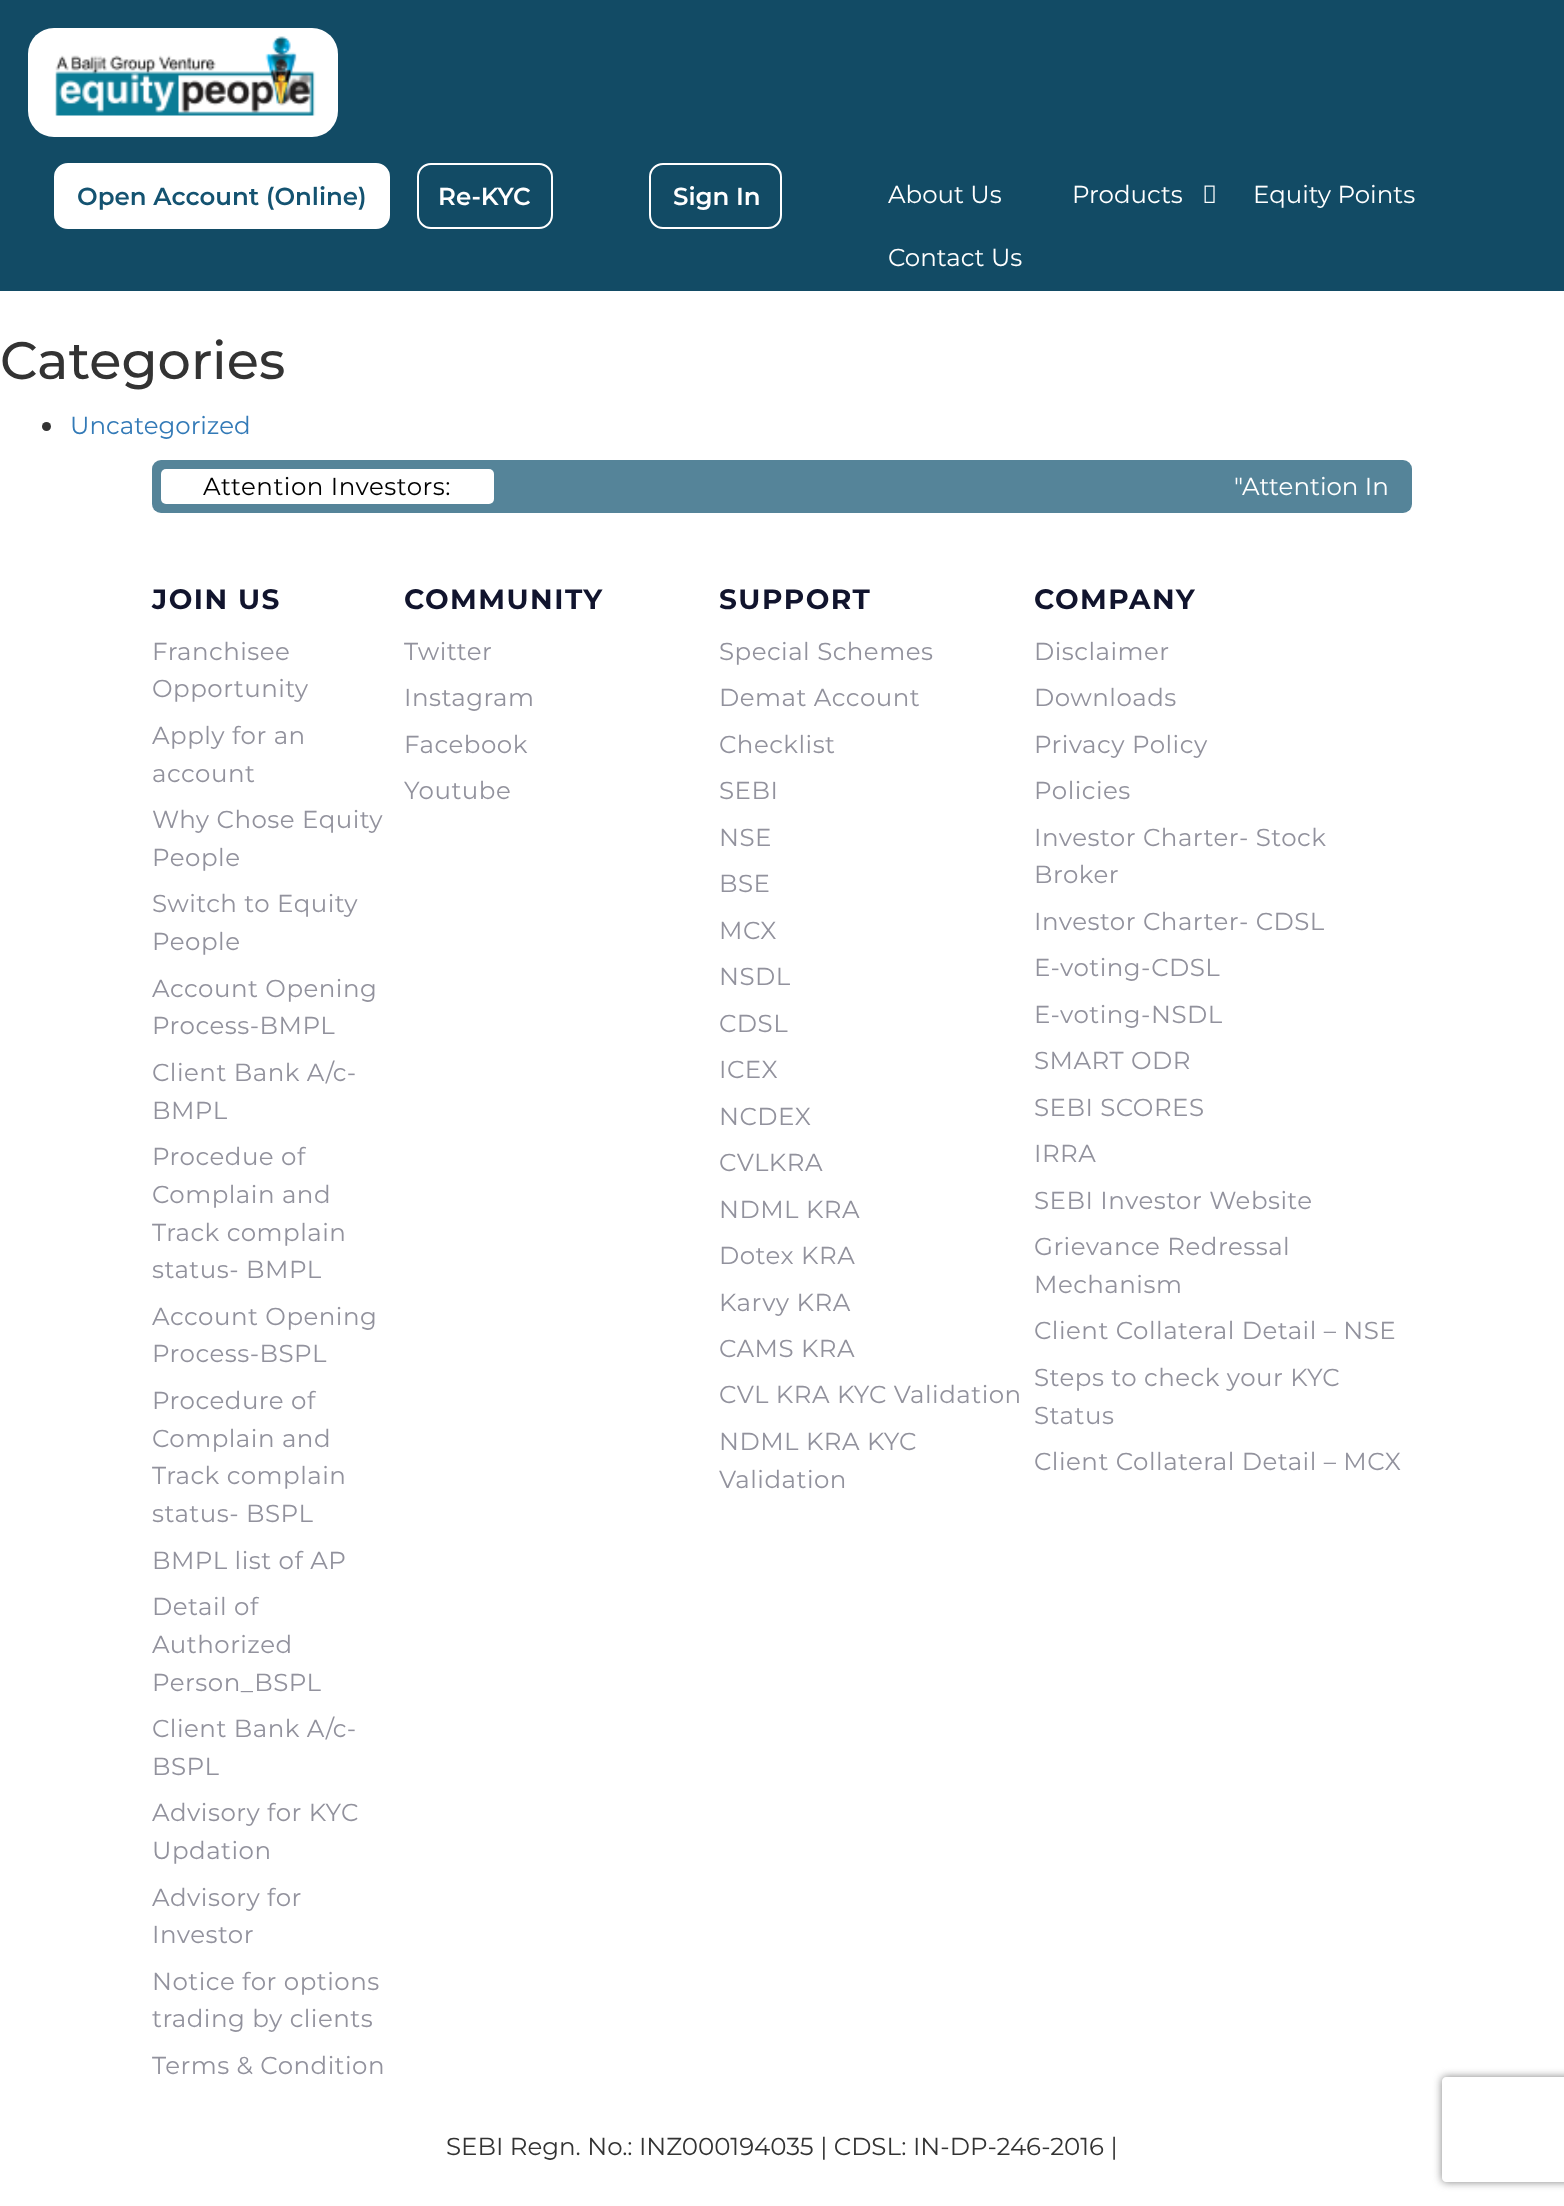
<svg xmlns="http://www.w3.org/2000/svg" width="1564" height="2206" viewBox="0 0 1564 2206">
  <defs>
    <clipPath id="clip1"><path d="M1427 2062H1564V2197H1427ZM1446 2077H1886C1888 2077 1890 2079 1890 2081V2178C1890 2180 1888 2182 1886 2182H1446C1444 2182 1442 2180 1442 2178V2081C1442 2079 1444 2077 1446 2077Z" clip-rule="evenodd"/></clipPath>
  </defs>
  <rect width="100%" height="100%" fill="rgb(255,255,255)"/>
  <rect x="0" y="0" width="1564" height="291" fill="rgb(18,75,101)"/>
  <rect x="28" y="28" width="310" height="109" rx="26" fill="rgb(255,255,255)"/>
  <image x="55" y="36" width="261" height="80" href="pic1.png"/>
  <rect x="55" y="164" width="334" height="64" rx="13" fill="rgb(255,255,255)" stroke="rgb(255,255,255)" stroke-width="2"/>
  <text x="77" y="205" font-family="Montserrat" font-size="24.5" font-weight="600" fill="rgb(20,83,113)">Open Account (Online)</text>
  <rect x="418" y="164" width="134" height="64" rx="13" fill="none" stroke="rgb(255,255,255)" stroke-width="2"/>
  <text x="438" y="205" font-family="Montserrat" font-size="24.5" font-weight="600" fill="rgb(255,255,255)">Re-KYC</text>
  <rect x="650" y="164" width="131" height="64" rx="13" fill="none" stroke="rgb(255,255,255)" stroke-width="2"/>
  <text x="673" y="205" font-family="Montserrat" font-size="24.5" font-weight="600" fill="rgb(255,255,255)">Sign In</text>
  <g font-family="Montserrat" font-size="24.5" fill="rgb(255,255,255)">
    <text x="888" y="203">About Us</text>
    <text x="1072" y="203">Products</text>
  </g>
  <image x="1204" y="185" width="11" height="18" href="pic2.png"/>
  <g font-family="Montserrat" font-size="24.5" fill="rgb(255,255,255)">
    <text x="1253" y="203">Equity Points</text>
    <text x="888" y="266">Contact Us</text>
  </g>
  <text x="0" y="379" font-family="Montserrat" font-size="52.5" font-weight="500" fill="rgb(51,51,51)">Categories</text>
  <circle cx="46.5" cy="426.5" r="4.5" fill="rgb(51,51,51)"/>
  <text x="70" y="434" font-family="Montserrat" font-size="24.5" fill="rgb(51,122,183)">Uncategorized</text>
  <rect x="152" y="460" width="1260" height="53" rx="9" fill="rgb(85,132,153)"/>
  <rect x="161" y="469" width="333" height="35" rx="5" fill="rgb(255,255,255)"/>
  <text x="203" y="495" font-family="Montserrat" font-size="24.5" letter-spacing="0.5" fill="rgb(0,0,0)">Attention Investors:</text>
  <text x="1234" y="495" font-family="Montserrat" font-size="24.5" fill="rgb(255,255,255)">"Attention In</text>
  <text x="152" y="609" font-family="Montserrat" font-size="28" font-weight="bold" letter-spacing="1.5" fill="rgb(17,20,45)">JOIN US</text>
  <g font-family="Montserrat" font-size="24.5" letter-spacing="0.5" fill="rgb(146,146,157)">
    <text>
      <tspan x="152" y="660">Franchisee</tspan>
      <tspan x="152" y="697">Opportunity</tspan>
      <tspan x="152" y="744">Apply for an</tspan>
      <tspan x="152" y="782">account</tspan>
      <tspan x="152" y="828">Why Chose Equity</tspan>
      <tspan x="152" y="866">People</tspan>
      <tspan x="152" y="912">Switch to Equity</tspan>
      <tspan x="152" y="950">People</tspan>
      <tspan x="152" y="997">Account Opening</tspan>
      <tspan x="152" y="1034">Process-BMPL</tspan>
      <tspan x="152" y="1081">Client Bank A/c-</tspan>
      <tspan x="152" y="1119">BMPL</tspan>
      <tspan x="152" y="1165">Procedue of</tspan>
      <tspan x="152" y="1203">Complain and</tspan>
      <tspan x="152" y="1241">Track complain</tspan>
      <tspan x="152" y="1278">status- BMPL</tspan>
      <tspan x="152" y="1325">Account Opening</tspan>
      <tspan x="152" y="1362">Process-BSPL</tspan>
      <tspan x="152" y="1409">Procedure of</tspan>
      <tspan x="152" y="1447">Complain and</tspan>
      <tspan x="152" y="1484">Track complain</tspan>
      <tspan x="152" y="1522">status- BSPL</tspan>
      <tspan x="152" y="1569">BMPL list of AP</tspan>
      <tspan x="152" y="1615">Detail of</tspan>
      <tspan x="152" y="1653">Authorized</tspan>
      <tspan x="152" y="1691">Person_BSPL</tspan>
      <tspan x="152" y="1737">Client Bank A/c-</tspan>
      <tspan x="152" y="1775">BSPL</tspan>
      <tspan x="152" y="1821">Advisory for KYC</tspan>
      <tspan x="152" y="1859">Updation</tspan>
      <tspan x="152" y="1906">Advisory for</tspan>
      <tspan x="152" y="1943">Investor</tspan>
      <tspan x="152" y="1990">Notice for options</tspan>
      <tspan x="152" y="2027">trading by clients</tspan>
      <tspan x="152" y="2074">Terms &amp; Condition</tspan>
    </text>
  </g>
  <text x="404" y="609" font-family="Montserrat" font-size="28" font-weight="bold" letter-spacing="1.5" fill="rgb(17,20,45)">COMMUNITY</text>
  <g font-family="Montserrat" font-size="24.5" letter-spacing="0.5" fill="rgb(146,146,157)">
    <text>
      <tspan x="404" y="660">Twitter</tspan>
      <tspan x="404" y="706">Instagram</tspan>
      <tspan x="404" y="753">Facebook</tspan>
      <tspan x="404" y="799">Youtube</tspan>
    </text>
  </g>
  <text x="719" y="609" font-family="Montserrat" font-size="28" font-weight="bold" letter-spacing="1.5" fill="rgb(17,20,45)">SUPPORT</text>
  <g font-family="Montserrat" font-size="24.5" letter-spacing="0.5" fill="rgb(146,146,157)">
    <text>
      <tspan x="719" y="660">Special Schemes</tspan>
      <tspan x="719" y="706">Demat Account</tspan>
      <tspan x="719" y="753">Checklist</tspan>
      <tspan x="719" y="799">SEBI</tspan>
      <tspan x="719" y="846">NSE</tspan>
      <tspan x="719" y="892">BSE</tspan>
      <tspan x="719" y="939">MCX</tspan>
      <tspan x="719" y="985">NSDL</tspan>
      <tspan x="719" y="1032">CDSL</tspan>
      <tspan x="719" y="1078">ICEX</tspan>
      <tspan x="719" y="1125">NCDEX</tspan>
      <tspan x="719" y="1171">CVLKRA</tspan>
      <tspan x="719" y="1218">NDML KRA</tspan>
      <tspan x="719" y="1264">Dotex KRA</tspan>
      <tspan x="719" y="1311">Karvy KRA</tspan>
      <tspan x="719" y="1357">CAMS KRA</tspan>
      <tspan x="719" y="1403">CVL KRA KYC Validation</tspan>
      <tspan x="719" y="1450">NDML KRA KYC</tspan>
      <tspan x="719" y="1488">Validation</tspan>
    </text>
  </g>
  <text x="1034" y="609" font-family="Montserrat" font-size="28" font-weight="bold" letter-spacing="1.5" fill="rgb(17,20,45)">COMPANY</text>
  <g font-family="Montserrat" font-size="24.5" letter-spacing="0.5" fill="rgb(146,146,157)">
    <text>
      <tspan x="1034" y="660">Disclaimer</tspan>
      <tspan x="1034" y="706">Downloads</tspan>
      <tspan x="1034" y="753">Privacy Policy</tspan>
      <tspan x="1034" y="799">Policies</tspan>
      <tspan x="1034" y="846">Investor Charter- Stock</tspan>
      <tspan x="1034" y="883">Broker</tspan>
      <tspan x="1034" y="930">Investor Charter- CDSL</tspan>
      <tspan x="1034" y="976">E-voting-CDSL</tspan>
      <tspan x="1034" y="1023">E-voting-NSDL</tspan>
      <tspan x="1034" y="1069">SMART ODR</tspan>
      <tspan x="1034" y="1116">SEBI SCORES</tspan>
      <tspan x="1034" y="1162">IRRA</tspan>
      <tspan x="1034" y="1209">SEBI Investor Website</tspan>
      <tspan x="1034" y="1255">Grievance Redressal</tspan>
      <tspan x="1034" y="1293">Mechanism</tspan>
      <tspan x="1034" y="1339">Client Collateral Detail – NSE</tspan>
      <tspan x="1034" y="1386">Steps to check your KYC</tspan>
      <tspan x="1034" y="1424">Status</tspan>
      <tspan x="1034" y="1470">Client Collateral Detail – MCX</tspan>
    </text>
  </g>
  <text x="446" y="2155" font-family="Montserrat" font-size="24.5" fill="rgb(51,51,51)">SEBI Regn. No.: INZ000194035 | CDSL: IN-DP-246-2016 |</text>
  <g clip-path="url(#clip1)">
    <rect x="1442" y="2077" width="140" height="105" rx="4" fill="rgb(128,128,128)" filter="blur(4.5px)"/>
  </g>
</svg>
